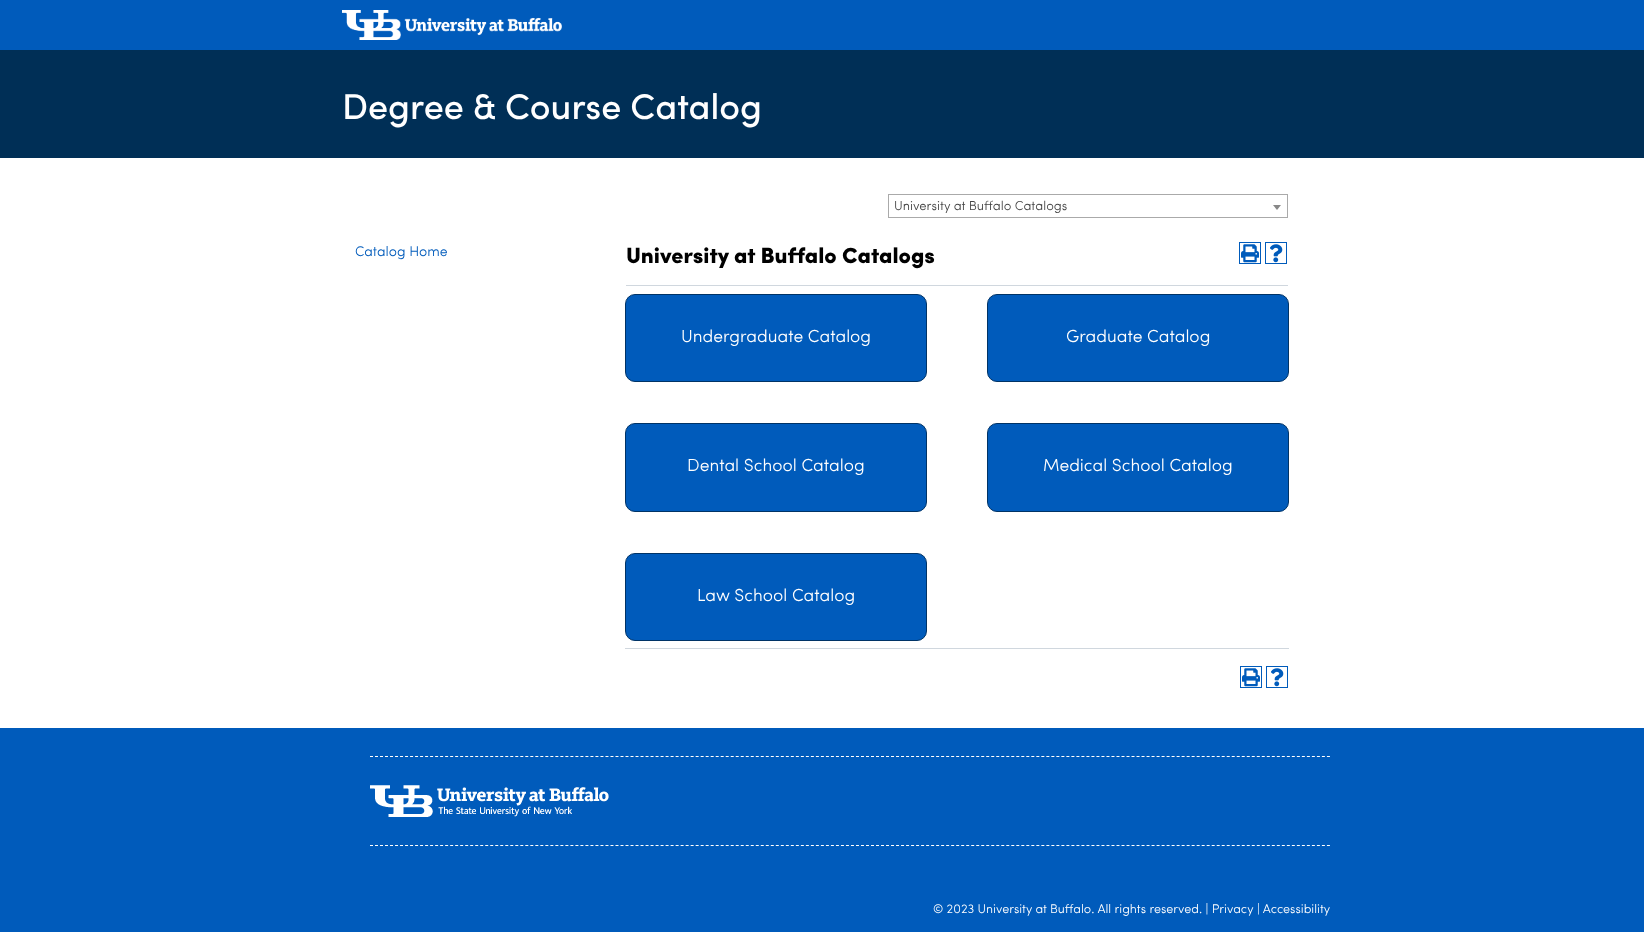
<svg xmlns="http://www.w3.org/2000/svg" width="1644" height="932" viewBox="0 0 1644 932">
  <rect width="100%" height="100%" fill="rgb(255,255,255)"/>
  <rect x="0" y="0" width="1644" height="50" fill="rgb(0,91,187)"/>
  <image x="342" y="10" width="220" height="30" href="pic1.png"/>
  <rect x="0" y="50" width="1644" height="108" fill="rgb(0,47,86)"/>
  <text x="342" y="119" font-family="Sofia" font-size="36" font-weight="500" fill="rgb(255,255,255)">Degree &amp; Course Catalog</text>
  <rect x="888.5" y="194.5" width="399" height="23" fill="none" stroke="rgb(170,170,170)"/>
  <text x="894" y="210" font-family="Sofia" font-size="13" font-weight="300" fill="rgb(68,68,68)">University at Buffalo Catalogs</text>
  <path d="M1273 205H1281L1277 210Z" fill="rgb(136,136,136)"/>
  <text x="355" y="256" font-family="Sofia" font-size="14" font-weight="300" fill="rgb(0,91,187)">Catalog Home</text>
  <text x="626" y="263" font-family="Sofia" font-size="22" font-weight="900" fill="rgb(0,0,0)">University at Buffalo Catalogs</text>
  <rect x="1239.5" y="242.5" width="21" height="21" fill="none" stroke="rgb(0,91,187)"/>
  <image x="1241" y="244" width="18" height="19" href="pic2.png"/>
  <rect x="1265.5" y="242.5" width="21" height="21" fill="none" stroke="rgb(0,91,187)"/>
  <image x="1270" y="244" width="13" height="19" href="pic3.png"/>
  <rect x="626" y="285" width="662" height="1" fill="rgb(208,215,222)"/>
  <rect x="625.5" y="294.5" width="301" height="87" rx="9.5" fill="rgb(0,91,187)" stroke="rgb(0,51,102)"/>
  <text x="681" y="342" font-family="Sofia" font-size="17.5" font-weight="300" fill="rgb(255,255,255)">Undergraduate Catalog</text>
  <rect x="987.5" y="294.5" width="301" height="87" rx="9.5" fill="rgb(0,91,187)" stroke="rgb(0,51,102)"/>
  <text x="1066" y="342" font-family="Sofia" font-size="17.5" font-weight="300" fill="rgb(255,255,255)">Graduate Catalog</text>
  <rect x="625.5" y="423.5" width="301" height="88" rx="9.5" fill="rgb(0,91,187)" stroke="rgb(0,51,102)"/>
  <text x="687" y="471" font-family="Sofia" font-size="17.5" font-weight="300" fill="rgb(255,255,255)">Dental School Catalog</text>
  <rect x="987.5" y="423.5" width="301" height="88" rx="9.5" fill="rgb(0,91,187)" stroke="rgb(0,51,102)"/>
  <text x="1043" y="471" font-family="Sofia" font-size="17.5" font-weight="300" fill="rgb(255,255,255)">Medical School Catalog</text>
  <rect x="625.5" y="553.5" width="301" height="87" rx="9.5" fill="rgb(0,91,187)" stroke="rgb(0,51,102)"/>
  <text x="697" y="601" font-family="Sofia" font-size="17.5" font-weight="300" fill="rgb(255,255,255)">Law School Catalog</text>
  <rect x="625" y="648" width="664" height="1" fill="rgb(208,215,222)"/>
  <rect x="1240.5" y="666.5" width="21" height="21" fill="none" stroke="rgb(0,91,187)"/>
  <image x="1242" y="668" width="18" height="19" href="pic2.png"/>
  <rect x="1266.5" y="666.5" width="21" height="21" fill="none" stroke="rgb(0,91,187)"/>
  <image x="1271" y="668" width="13" height="19" href="pic3.png"/>
  <rect x="0" y="728" width="1644" height="204" fill="rgb(0,91,187)"/>
  <path d="M370 756.5H1330" fill="none" stroke="rgb(255,255,255)" stroke-dasharray="3 2.01"/>
  <path d="M370 845.5H1330" fill="none" stroke="rgb(255,255,255)" stroke-dasharray="3 2.01"/>
  <image x="370" y="785" width="239" height="32" href="pic4.png"/>
  <g font-family="Sofia" font-size="12.6" font-weight="300" fill="rgb(255,255,255)">
    <text x="933" y="913">© 2023 University at Buffalo. All rights reserved. | Privacy</text>
    <text x="1257" y="913">| Accessibility</text>
  </g>
</svg>
